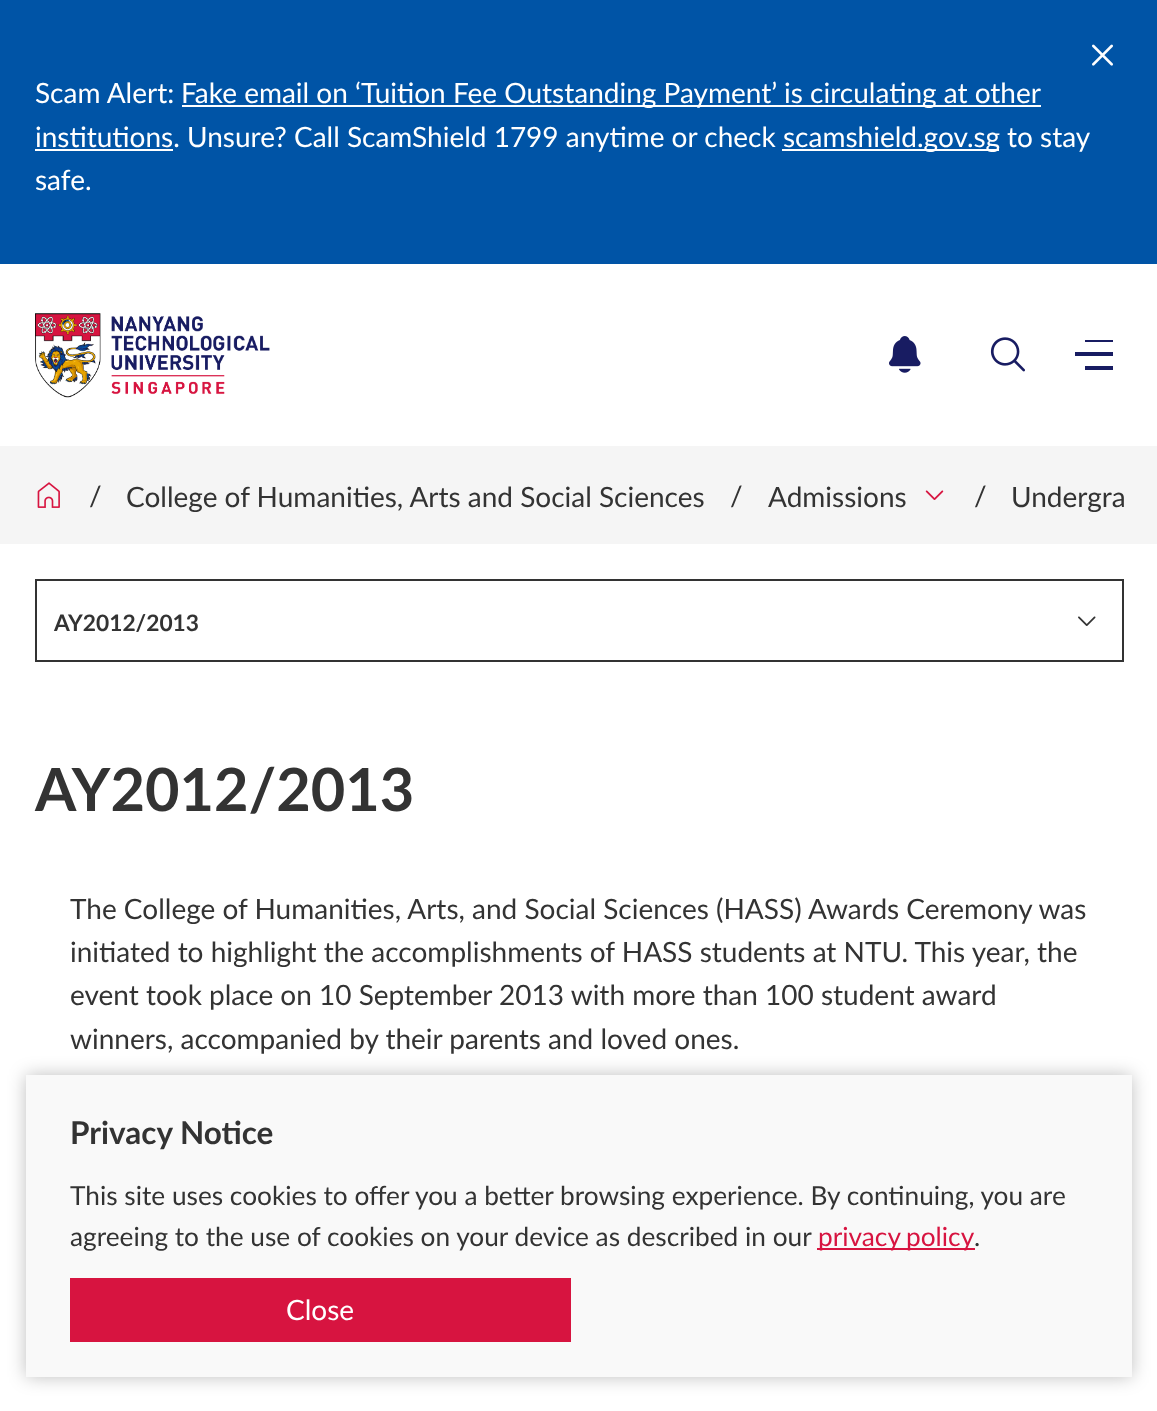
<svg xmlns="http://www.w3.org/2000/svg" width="1157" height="1411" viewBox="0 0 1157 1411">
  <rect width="100%" height="100%" fill="rgb(255,255,255)"/>
  <rect x="0" y="0" width="1157" height="264" fill="rgb(0,84,166)"/>
  <image x="1092" y="44" width="21" height="22" href="pic1.png"/>
  <text x="35" y="103" font-family="Lato" font-size="28" fill="rgb(255,255,255)">Scam Alert:</text>
  <rect x="182" y="105" width="859" height="2" fill="rgb(255,255,255)"/>
  <text x="181" y="103" font-family="Lato" font-size="28" fill="rgb(255,255,255)">Fake email on ‘Tuition Fee Outstanding Payment’ is circulating at other</text>
  <rect x="35" y="149" width="138" height="2" fill="rgb(255,255,255)"/>
  <text x="35" y="147" font-family="Lato" font-size="28" fill="rgb(255,255,255)">institutions. Unsure? Call ScamShield 1799 anytime or check</text>
  <rect x="782" y="149" width="217" height="2" fill="rgb(255,255,255)"/>
  <g font-family="Lato" font-size="28" fill="rgb(255,255,255)">
    <text x="783" y="147">scamshield.gov.sg</text>
    <text x="1007" y="147">to stay</text>
    <text x="35" y="190">safe.</text>
  </g>
  <image x="35" y="313" width="235" height="85" href="pic2.png"/>
  <image x="889" y="336" width="32" height="37" href="pic3.png"/>
  <image x="990" y="337" width="35" height="35" href="pic4.png"/>
  <rect x="1085" y="340" width="28" height="2" fill="rgb(24,28,98)"/>
  <rect x="1075" y="352" width="38" height="4" fill="rgb(24,28,98)"/>
  <rect x="1085" y="366" width="28" height="4" fill="rgb(24,28,98)"/>
  <rect x="0" y="446" width="1157" height="98" fill="rgb(245,245,245)"/>
  <image x="37" y="482" width="23" height="26" href="pic5.png"/>
  <g font-family="Lato" font-size="28" fill="rgb(51,51,51)">
    <text x="89" y="506">/</text>
    <text x="126" y="507">College of Humanities, Arts and Social Sciences</text>
    <text x="730" y="506">/</text>
    <text x="768" y="507">Admissions</text>
  </g>
  <image x="925" y="490" width="19" height="10" href="pic6.png"/>
  <g font-family="Lato" font-size="28" fill="rgb(51,51,51)">
    <text x="974" y="506">/</text>
    <text x="1011" y="507">Undergra</text>
  </g>
  <rect x="36" y="580" width="1087" height="81" fill="none" stroke="rgb(51,51,51)" stroke-width="2"/>
  <text x="54" y="631" font-family="Lato" font-size="22.75" font-weight="bold" fill="rgb(51,51,51)">AY2012/2013</text>
  <image x="1078" y="616" width="18" height="10" href="pic7.png"/>
  <text x="35" y="811" font-family="Lato" font-size="59.5" font-weight="bold" fill="rgb(51,51,51)">AY2012/2013</text>
  <g font-family="Lato" font-size="28" fill="rgb(51,51,51)">
    <text>
      <tspan x="70" y="919">The College of Humanities, Arts, and Social Sciences (HASS) Awards Ceremony was</tspan>
      <tspan x="70" y="962">initiated to highlight the accomplishments of HASS students at NTU. This year, the</tspan>
      <tspan x="70" y="1005">event took place on 10 September 2013 with more than 100 student award</tspan>
      <tspan x="70" y="1049">winners, accompanied by their parents and loved ones.</tspan>
    </text>
  </g>
  <rect x="26" y="1075" width="1106" height="302" fill="rgba(0,0,0,0.25)" filter="blur(9px)"/>
  <rect x="26" y="1075" width="1106" height="302" fill="rgb(249,249,249)"/>
  <text x="70" y="1144" font-family="Lato" font-size="31.5" font-weight="bold" fill="rgb(51,51,51)">Privacy Notice</text>
  <g font-family="Lato" font-size="26.25" fill="rgb(51,51,51)">
    <text>
      <tspan x="70" y="1205">This site uses cookies to offer you a better browsing experience. By continuing, you are</tspan>
      <tspan x="70" y="1246">agreeing to the use of cookies on your device as described in our</tspan>
    </text>
  </g>
  <rect x="817" y="1248" width="158" height="2" fill="rgb(215,20,64)"/>
  <text x="818" y="1246" word-spacing="-1" font-family="Lato" font-size="26.25" fill="rgb(215,20,64)">privacy policy</text>
  <text x="974" y="1246" font-family="Lato" font-size="26.25" fill="rgb(51,51,51)">.</text>
  <rect x="70" y="1278" width="501" height="64" fill="rgb(215,20,64)"/>
  <text x="286" y="1320" font-family="Lato" font-size="28" fill="rgb(255,255,255)">Close</text>
</svg>
